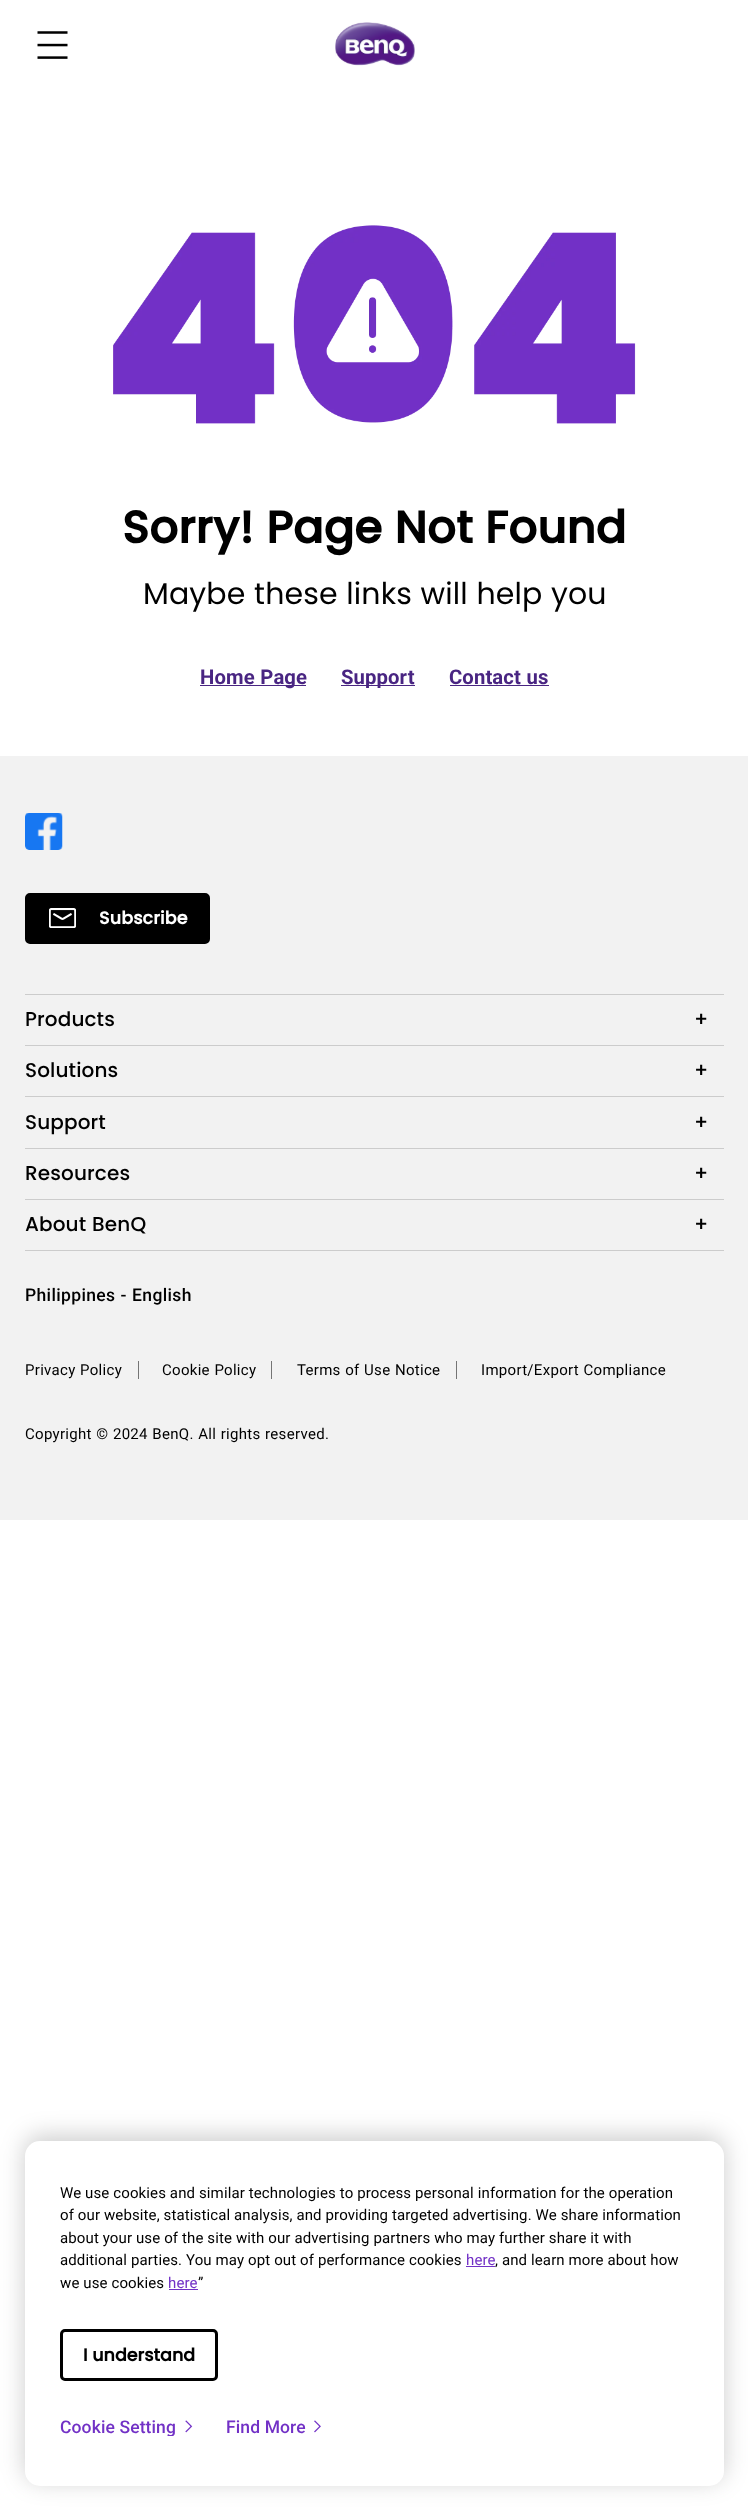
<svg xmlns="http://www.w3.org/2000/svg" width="748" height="2511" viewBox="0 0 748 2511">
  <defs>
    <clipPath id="clip1"><rect x="60" y="2416" width="136" height="20"/></clipPath>
  </defs>
  <rect width="100%" height="100%" fill="rgb(255,255,255)"/>
  <image x="113" y="225" width="523" height="199" href="pic1.png"/>
  <text x="122" y="543" word-spacing="0.5" font-family="Poppins" font-size="45" font-weight="bold" letter-spacing="0.12" fill="rgb(0,0,0)">Sorry! Page Not Found</text>
  <text x="143" y="604" word-spacing="0.5" font-family="Poppins" font-size="30" letter-spacing="0.12" fill="rgb(0,0,0)">Maybe these links will help you</text>
  <rect x="200" y="685" width="106" height="1" fill="rgb(73,37,130)"/>
  <text x="200" y="684" word-spacing="0.5" font-family="Roboto" font-size="20.25" font-weight="bold" letter-spacing="0.12" fill="rgb(73,37,130)">Home Page</text>
  <rect x="341" y="685" width="74" height="1" fill="rgb(73,37,130)"/>
  <g font-family="Roboto" font-size="20.25" font-weight="bold" letter-spacing="0.12" fill="rgb(73,37,130)">
    <text x="341" y="684">Support</text>
    <text x="449" y="684" word-spacing="0.5">Contact us</text>
  </g>
  <rect x="450" y="685" width="99" height="1" fill="rgb(73,37,130)"/>
  <rect x="0" y="756" width="748" height="764" fill="rgb(242,242,242)"/>
  <rect x="25" y="994" width="699" height="1" fill="rgb(204,204,204)"/>
  <image x="25" y="813" width="38" height="37" href="pic2.png"/>
  <rect x="26.5" y="894.5" width="182" height="48" rx="3.5" fill="rgb(0,0,0)" stroke="rgb(0,0,0)" stroke-width="3"/>
  <image x="49" y="908" width="27" height="20" href="pic3.png"/>
  <text x="99" y="924" font-family="Poppins" font-size="17.5" font-weight="bold" letter-spacing="0.12" fill="rgb(255,255,255)">Subscribe</text>
  <rect x="25" y="1045" width="699" height="1" fill="rgb(204,204,204)"/>
  <g font-family="Poppins" font-size="20" font-weight="500" letter-spacing="0.12" fill="rgb(0,0,0)">
    <text x="25" y="1026">Products</text>
    <text x="694" y="1026">+</text>
  </g>
  <rect x="25" y="1096" width="699" height="1" fill="rgb(204,204,204)"/>
  <g font-family="Poppins" font-size="20" font-weight="500" letter-spacing="0.12" fill="rgb(0,0,0)">
    <text x="25" y="1077">Solutions</text>
    <text x="694" y="1077">+</text>
  </g>
  <rect x="25" y="1148" width="699" height="1" fill="rgb(204,204,204)"/>
  <g font-family="Poppins" font-size="20" font-weight="500" letter-spacing="0.12" fill="rgb(0,0,0)">
    <text x="25" y="1129">Support</text>
    <text x="694" y="1129">+</text>
  </g>
  <rect x="25" y="1199" width="699" height="1" fill="rgb(204,204,204)"/>
  <g font-family="Poppins" font-size="20" font-weight="500" letter-spacing="0.12" fill="rgb(0,0,0)">
    <text x="25" y="1180">Resources</text>
    <text x="694" y="1180">+</text>
  </g>
  <rect x="25" y="1250" width="699" height="1" fill="rgb(204,204,204)"/>
  <g font-family="Poppins" font-size="20" font-weight="500" letter-spacing="0.12" fill="rgb(0,0,0)">
    <text x="25" y="1231" word-spacing="0.5">About BenQ</text>
    <text x="694" y="1231">+</text>
  </g>
  <text x="25" y="1301" word-spacing="0.5" font-family="Roboto" font-size="17.5" font-weight="500" letter-spacing="0.35" fill="rgb(0,0,0)">Philippines - English</text>
  <text x="25" y="1375" word-spacing="0.5" font-family="Roboto" font-size="15" letter-spacing="0.3" fill="rgb(0,0,0)">Privacy Policy</text>
  <rect x="138" y="1361" width="1" height="18" fill="rgb(117,117,117)"/>
  <text x="162" y="1375" word-spacing="0.5" font-family="Roboto" font-size="15" letter-spacing="0.3" fill="rgb(0,0,0)">Cookie Policy</text>
  <rect x="271" y="1361" width="1" height="18" fill="rgb(117,117,117)"/>
  <text x="297" y="1375" word-spacing="0.5" font-family="Roboto" font-size="15" letter-spacing="0.3" fill="rgb(0,0,0)">Terms of Use Notice</text>
  <rect x="456" y="1361" width="1" height="18" fill="rgb(117,117,117)"/>
  <g font-family="Roboto" font-size="15" letter-spacing="0.3" fill="rgb(0,0,0)">
    <text x="481" y="1375" word-spacing="0.5">Import/Export Compliance</text>
    <text x="25" y="1439" word-spacing="0.5">Copyright © 2024 BenQ. All rights reserved.</text>
  </g>
  <image x="37" y="31" width="31" height="28" href="pic4.png"/>
  <image x="335" y="22" width="80" height="44" href="pic5.png"/>
  <rect x="25" y="2136" width="699" height="345" rx="15" fill="rgba(0,0,0,0.2)" filter="blur(12.5px)"/>
  <rect x="25" y="2141" width="699" height="345" rx="15" fill="rgb(255,255,255)"/>
  <g font-family="Roboto" font-size="15" letter-spacing="0.12" fill="rgb(0,0,0)">
    <text>
      <tspan x="60" y="2198">We use cookies and similar technologies to process personal information for the operation</tspan>
      <tspan x="60" y="2220">of our website, statistical analysis, and providing targeted advertising. We share information</tspan>
      <tspan x="60" y="2243">about your use of the site with our advertising partners who may further share it with</tspan>
      <tspan x="60" y="2265">additional parties. You may opt out of performance cookies</tspan>
    </text>
  </g>
  <text x="466" y="2265" font-family="Roboto" font-size="15" letter-spacing="0.12" fill="rgb(114,49,198)">here</text>
  <rect x="466" y="2266" width="29" height="1" fill="rgb(114,49,198)"/>
  <g font-family="Roboto" font-size="15" letter-spacing="0.12" fill="rgb(0,0,0)">
    <text x="495" y="2265">, and learn more about how</text>
    <text x="60" y="2288">we use cookies</text>
  </g>
  <text x="168" y="2288" font-family="Roboto" font-size="15" letter-spacing="0.12" fill="rgb(114,49,198)">here</text>
  <rect x="169" y="2289" width="29" height="1" fill="rgb(114,49,198)"/>
  <text x="198" y="2288" font-family="Roboto" font-size="15" letter-spacing="0.12" fill="rgb(0,0,0)">”</text>
  <rect x="61.5" y="2330.5" width="155" height="49" rx="3.5" fill="none" stroke="rgb(0,0,0)" stroke-width="3"/>
  <text x="83" y="2361" font-family="Poppins" font-size="17.5" font-weight="bold" fill="rgb(0,0,0)">I understand</text>
  <g clip-path="url(#clip1)">
    <text x="60" y="2433" font-family="Roboto" font-size="17.5" font-weight="500" letter-spacing="0.12" fill="rgb(114,49,198)">Cookie Setting</text>
  </g>
  <image x="185" y="2420" width="8" height="13" href="pic6.png"/>
  <text x="226" y="2433" font-family="Roboto" font-size="17.5" font-weight="500" letter-spacing="0.12" fill="rgb(114,49,198)">Find More</text>
  <image x="314" y="2420" width="7" height="13" href="pic7.png"/>
</svg>
